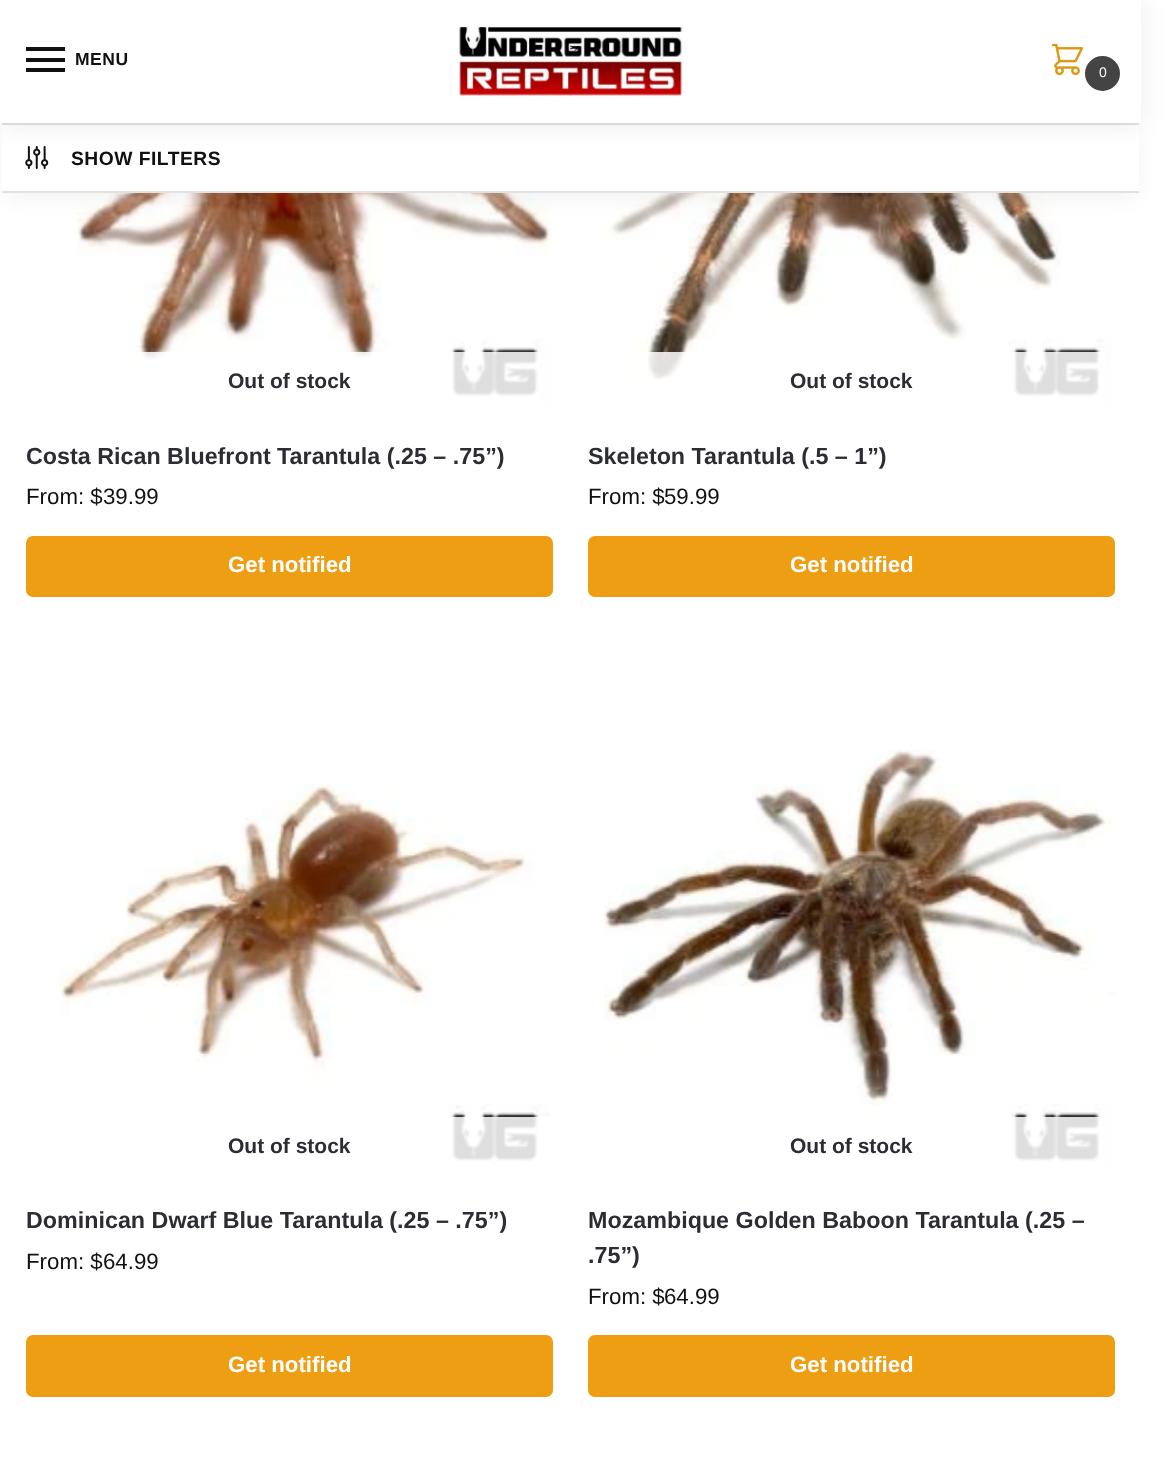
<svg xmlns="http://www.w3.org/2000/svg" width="1167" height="1463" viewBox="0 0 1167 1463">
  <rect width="100%" height="100%" fill="rgb(255,255,255)"/>
  <image x="26" y="193" width="526" height="214" href="pic4.png"/>
  <image x="588" y="193" width="524" height="214" href="pic5.png"/>
  <rect x="5" y="133" width="1131" height="63" fill="rgba(0,0,0,0.06)" filter="blur(10.5px)"/>
  <rect x="2" y="125" width="1137" height="66" fill="rgb(255,255,255)"/>
  <rect x="2" y="123" width="1137" height="2" fill="rgb(226,226,226)"/>
  <image x="25" y="146" width="24" height="23" href="pic3.png"/>
  <rect x="0" y="2" width="1141" height="122" fill="rgba(0,0,0,0.08)" filter="blur(13px)"/>
  <rect x="0" y="0" width="1141" height="123" fill="rgb(255,255,255)"/>
  <rect x="26" y="47" width="39" height="4" fill="rgb(17,17,17)"/>
  <rect x="26" y="58" width="39" height="4" fill="rgb(17,17,17)"/>
  <text x="75" y="65" font-family="Liberation Sans" font-size="17.5" font-weight="bold" letter-spacing="0.5" fill="rgb(17,17,17)">MENU</text>
  <rect x="26" y="68" width="39" height="4" fill="rgb(17,17,17)"/>
  <image x="458" y="26" width="225" height="70" href="pic1.png"/>
  <image x="1051" y="43" width="33" height="33" href="pic2.png"/>
  <circle cx="1102.5" cy="73.5" r="16.5" fill="rgb(68,68,68)" stroke="rgb(68,68,68)" stroke-width="2"/>
  <text x="1099" y="77" font-family="Liberation Sans" font-size="14" fill="rgb(255,255,255)">0</text>
  <rect x="2" y="191" width="1137" height="2" fill="rgb(226,226,226)"/>
  <text x="71" y="165" font-family="Liberation Sans" font-size="19.25" font-weight="bold" letter-spacing="0.5" fill="rgb(17,17,17)">SHOW FILTERS</text>
  <rect x="136" y="352" width="405" height="55" fill="rgba(255,255,255,0.85)"/>
  <text x="228" y="388" font-family="Liberation Sans" font-size="21" font-weight="bold" fill="rgb(44,45,51)">Out of stock</text>
  <text x="26" y="464" font-family="Liberation Sans" font-size="23.3" font-weight="bold" fill="rgb(44,45,51)">Costa Rican Bluefront Tarantula (.25 – .75”)</text>
  <g font-family="Liberation Sans" font-size="22.25" fill="rgb(17,17,17)">
    <text x="26" y="504">From: $</text>
    <text x="103" y="504">39.99</text>
  </g>
  <rect x="26" y="536" width="527" height="61" rx="7" fill="rgb(238,158,19)"/>
  <text x="228" y="572" font-family="Liberation Sans" font-size="22.25" font-weight="bold" fill="rgb(255,255,255)">Get notified</text>
  <rect x="638" y="352" width="467" height="55" fill="rgba(255,255,255,0.85)"/>
  <text x="790" y="388" font-family="Liberation Sans" font-size="21" font-weight="bold" fill="rgb(44,45,51)">Out of stock</text>
  <text x="588" y="464" font-family="Liberation Sans" font-size="23.3" font-weight="bold" fill="rgb(44,45,51)">Skeleton Tarantula (.5 – 1”)</text>
  <g font-family="Liberation Sans" font-size="22.25" fill="rgb(17,17,17)">
    <text x="588" y="504">From: $</text>
    <text x="664" y="504">59.99</text>
  </g>
  <rect x="588" y="536" width="527" height="61" rx="7" fill="rgb(238,158,19)"/>
  <text x="790" y="572" font-family="Liberation Sans" font-size="22.25" font-weight="bold" fill="rgb(255,255,255)">Get notified</text>
  <image x="59" y="783" width="490" height="389" href="pic6.png"/>
  <rect x="447" y="1117" width="102" height="55" fill="rgba(255,255,255,0.85)"/>
  <text x="228" y="1153" font-family="Liberation Sans" font-size="21" font-weight="bold" fill="rgb(44,45,51)">Out of stock</text>
  <text x="26" y="1228" font-family="Liberation Sans" font-size="23.3" font-weight="bold" fill="rgb(44,45,51)">Dominican Dwarf Blue Tarantula (.25 – .75”)</text>
  <g font-family="Liberation Sans" font-size="22.25" fill="rgb(17,17,17)">
    <text x="26" y="1269">From: $</text>
    <text x="103" y="1269">64.99</text>
  </g>
  <rect x="26" y="1335" width="527" height="62" rx="7" fill="rgb(238,158,19)"/>
  <text x="228" y="1372" font-family="Liberation Sans" font-size="22.25" font-weight="bold" fill="rgb(255,255,255)">Get notified</text>
  <image x="604" y="749" width="510" height="422" href="pic7.png"/>
  <rect x="1009" y="1117" width="94" height="54" fill="rgba(255,255,255,0.85)"/>
  <text x="790" y="1153" font-family="Liberation Sans" font-size="21" font-weight="bold" fill="rgb(44,45,51)">Out of stock</text>
  <g font-family="Liberation Sans" font-size="23.3" font-weight="bold" fill="rgb(44,45,51)">
    <text>
      <tspan x="588" y="1228">Mozambique Golden Baboon Tarantula (.25 –</tspan>
      <tspan x="588" y="1263">.75”)</tspan>
    </text>
  </g>
  <g font-family="Liberation Sans" font-size="22.25" fill="rgb(17,17,17)">
    <text x="588" y="1304">From: $</text>
    <text x="664" y="1304">64.99</text>
  </g>
  <rect x="588" y="1335" width="527" height="62" rx="7" fill="rgb(238,158,19)"/>
  <text x="790" y="1372" font-family="Liberation Sans" font-size="22.25" font-weight="bold" fill="rgb(255,255,255)">Get notified</text>
</svg>
